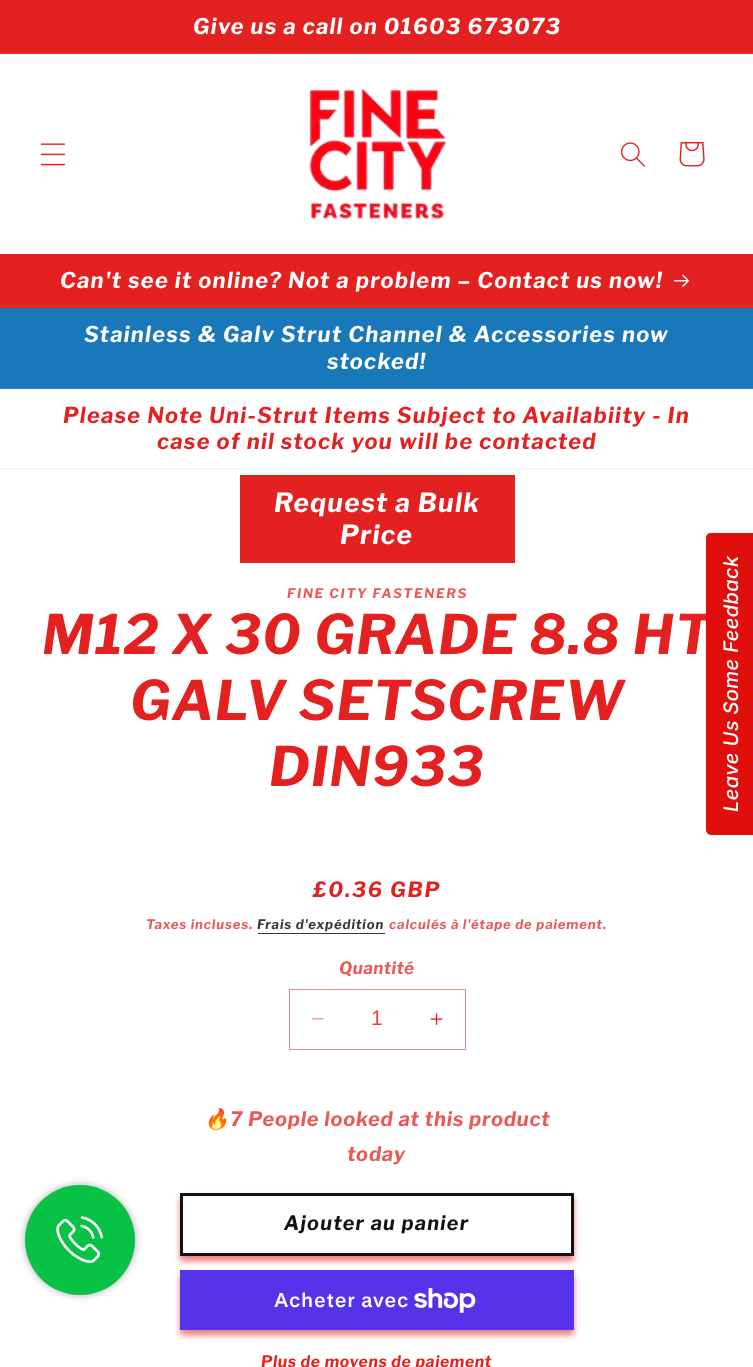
<svg xmlns="http://www.w3.org/2000/svg" width="753" height="1367" viewBox="0 0 753 1367">
  <rect width="100%" height="100%" fill="rgb(255,255,255)"/>
  <rect x="0" y="0" width="753" height="53" fill="rgb(226,33,32)"/>
  <rect x="0" y="53" width="753" height="1" fill="rgb(228,51,50)"/>
  <text x="193" y="34" font-family="Libre Franklin" font-size="21.75" font-weight="bold" font-style="italic" letter-spacing="1.3" fill="rgb(255,255,255)">Give us a call on 01603 673073</text>
  <image x="40" y="143" width="26" height="23" href="pic1.png"/>
  <image x="309" y="88" width="138" height="131" href="pic2.png"/>
  <image x="620" y="142" width="25" height="25" href="pic3.png"/>
  <image x="679" y="142" width="26" height="25" href="pic4.png"/>
  <rect x="0" y="254" width="753" height="54" fill="rgb(226,33,32)"/>
  <rect x="0" y="306" width="753" height="1" fill="rgb(228,51,50)"/>
  <text x="60" y="288" font-family="Libre Franklin" font-size="21.75" font-weight="bold" font-style="italic" letter-spacing="1.3" fill="rgb(255,255,255)">Can't see it online? Not a problem – Contact us now!</text>
  <image x="674" y="274" width="15" height="14" href="pic5.png"/>
  <rect x="0" y="308" width="753" height="80" fill="rgb(24,120,185)"/>
  <rect x="0" y="388" width="753" height="1" fill="rgb(42,131,191)"/>
  <g font-family="Libre Franklin" font-size="21.75" font-weight="bold" font-style="italic" letter-spacing="1.3" fill="rgb(255,255,255)">
    <text x="84" y="342">Stainless &amp; Galv Strut Channel &amp; Accessories now</text>
    <text x="327" y="369">stocked!</text>
  </g>
  <rect x="0" y="468" width="753" height="1" fill="rgb(253,237,237)"/>
  <g font-family="Libre Franklin" font-size="21.75" font-weight="bold" font-style="italic" letter-spacing="1.3" fill="rgb(226,33,32)">
    <text x="63" y="423">Please Note Uni-Strut Items Subject to Availabiity - In</text>
    <text x="157" y="449">case of nil stock you will be contacted</text>
  </g>
  <rect x="240" y="475" width="275" height="88" fill="rgb(226,33,32)"/>
  <g font-family="Libre Franklin" font-size="26.25" font-weight="bold" font-style="italic" letter-spacing="1.3" fill="rgb(255,255,255)">
    <text x="274" y="512">Request a Bulk</text>
    <text x="340" y="544">Price</text>
  </g>
  <text x="287" y="598" font-family="Libre Franklin" font-size="13.1" font-weight="bold" font-style="italic" letter-spacing="1.75" fill="rgb(233,89,88)">FINE CITY FASTENERS</text>
  <g font-family="Libre Franklin" font-size="54.4" font-weight="bold" font-style="italic" letter-spacing="1.1" fill="rgb(226,33,32)">
    <text x="42" y="654">M12 X 30 GRADE 8.8 HT</text>
    <text x="130" y="720">GALV SETSCREW</text>
    <text x="269" y="786">DIN933</text>
  </g>
  <text x="313" y="897" font-family="Libre Franklin" font-size="21" font-weight="bold" font-style="italic" letter-spacing="1.75" fill="rgb(226,33,32)">£0.36 GBP</text>
  <text x="146" y="929" font-family="Libre Franklin" font-size="13.1" font-weight="bold" font-style="italic" letter-spacing="0.9" fill="rgb(233,89,88)">Taxes incluses.</text>
  <text x="257" y="929" font-family="Libre Franklin" font-size="13.1" font-weight="bold" font-style="italic" letter-spacing="0.9" fill="rgb(54,54,54)">Frais d'expédition</text>
  <rect x="258" y="933" width="127" height="1" fill="rgb(54,54,54)"/>
  <text x="389" y="929" font-family="Libre Franklin" font-size="13.1" font-weight="bold" font-style="italic" letter-spacing="0.9" fill="rgb(233,89,88)">calculés à l'étape de paiement.</text>
  <text x="339" y="974" font-family="Libre Franklin" font-size="17" font-weight="bold" font-style="italic" letter-spacing="0.5" fill="rgb(233,89,88)">Quantité</text>
  <image x="312" y="1018" width="12" height="2" href="pic6.png"/>
  <image x="430" y="1013" width="13" height="12" href="pic7.png"/>
  <rect x="289.5" y="989.5" width="176" height="60" fill="none" stroke="rgb(239,133,132)"/>
  <text x="371" y="1025" font-family="Liberation Sans" font-size="21" fill="rgb(230,66,65)">1</text>
  <text x="204" y="1126" font-family="Noto Color Emoji" font-size="20" font-weight="bold" font-style="italic" letter-spacing="0.8" fill="rgb(233,89,88)">🔥</text>
  <g font-family="Libre Franklin" font-size="20" font-weight="bold" font-style="italic" letter-spacing="0.8" fill="rgb(233,89,88)">
    <text x="230" y="1126">7 People looked at this product</text>
    <text x="347" y="1161">today</text>
  </g>
  <rect x="180" y="1198" width="394" height="63" fill="rgba(226,33,32,0.6)" filter="blur(3px)"/>
  <rect x="183" y="1196" width="388" height="57" fill="rgb(255,255,255)"/>
  <rect x="181.5" y="1194.5" width="391" height="60" fill="none" stroke="rgb(18,18,18)" stroke-width="3"/>
  <text x="284" y="1230" font-family="Libre Franklin" font-size="19.75" font-weight="bold" font-style="italic" letter-spacing="1.3" fill="rgb(18,18,18)">Ajouter au panier</text>
  <rect x="180" y="1275" width="394" height="60" fill="rgba(226,33,32,0.6)" filter="blur(3px)"/>
  <rect x="180" y="1270" width="394" height="60" fill="rgb(84,51,235)"/>
  <text x="274" y="1307" font-family="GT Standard" font-size="20" font-weight="600" letter-spacing="0.8" fill="rgb(255,255,255)">Acheter avec</text>
  <image x="414" y="1288" width="62" height="25" href="pic8.png"/>
  <text x="261" y="1367" font-family="Libre Franklin" font-size="15.75" font-weight="bold" font-style="italic" letter-spacing="0.65" fill="rgb(226,33,32)">Plus de moyens de paiement</text>
  <path d="M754 835H711C708 835 706 832 706 830V538C706 535 708 533 711 533H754Z" fill="rgb(225,14,14)"/>
  <text x="738" y="812" transform="rotate(-90 738 812)" font-family="Inter" font-size="20" font-weight="500" font-style="italic" letter-spacing="0.4" fill="rgb(255,255,255)">Leave Us Some Feedback</text>
  <rect x="30" y="1190" width="100" height="100" rx="50" fill="rgb(0,0,0)" filter="blur(6px)"/>
  <circle cx="80" cy="1240" r="55" fill="rgb(7,194,68)"/>
  <image x="56" y="1216" width="47" height="47" href="pic9.png"/>
</svg>
